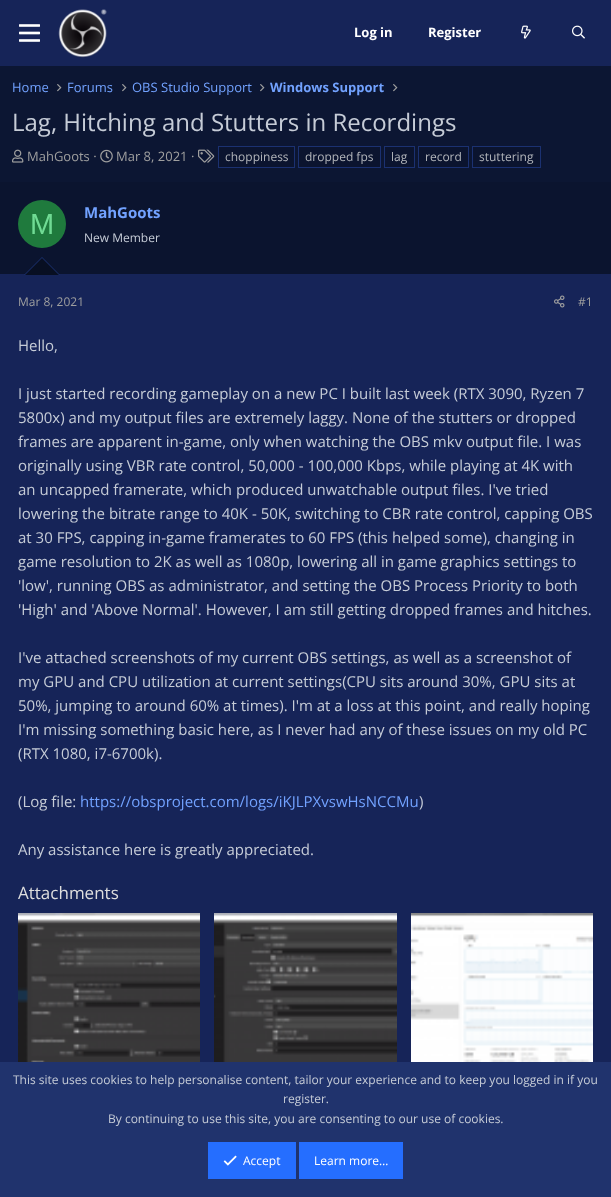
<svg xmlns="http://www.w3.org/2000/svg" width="611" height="1197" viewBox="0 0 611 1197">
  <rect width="100%" height="100%" fill="rgb(12,22,51)"/>
  <rect x="0" y="0" width="611" height="66" fill="rgb(22,36,88)"/>
  <image x="19" y="24" width="21" height="18" href="pic1.png"/>
  <image x="58" y="9" width="49" height="49" href="pic2.png"/>
  <g font-family="Open Sans" font-size="13" font-weight="bold" fill="rgb(255,255,255)">
    <text x="354" y="37">Log in</text>
    <text x="428" y="37">Register</text>
  </g>
  <image x="521" y="25" width="10" height="14" href="pic3.png"/>
  <image x="572" y="25" width="13" height="14" href="pic4.png"/>
  <text x="12" y="92" font-family="Open Sans" font-size="13" fill="rgb(114,162,255)">Home</text>
  <image x="57" y="84" width="5" height="8" href="pic5.png"/>
  <text x="67" y="92" font-family="Open Sans" font-size="13" fill="rgb(114,162,255)">Forums</text>
  <image x="122" y="84" width="5" height="8" href="pic5.png"/>
  <text x="132" y="92" font-family="Open Sans" font-size="13" fill="rgb(114,162,255)">OBS Studio Support</text>
  <image x="260" y="84" width="5" height="8" href="pic5.png"/>
  <text x="270" y="92" font-family="Open Sans" font-size="13" font-weight="bold" fill="rgb(114,162,255)">Windows Support</text>
  <image x="393" y="84" width="5" height="8" href="pic5.png"/>
  <text x="12" y="131" font-family="Open Sans" font-size="24" fill="rgb(198,204,215)">Lag, Hitching and Stutters in Recordings</text>
  <image x="12" y="149" width="12" height="14" href="pic6.png"/>
  <text x="27" y="161" font-family="Open Sans" font-size="13" fill="rgb(159,159,159)">MahGoots ·</text>
  <image x="100" y="149" width="13" height="14" href="pic7.png"/>
  <text x="116" y="161" font-family="Open Sans" font-size="13" fill="rgb(159,159,159)">Mar 8, 2021 ·</text>
  <image x="198" y="149" width="17" height="14" href="pic8.png"/>
  <rect x="218.5" y="146.5" width="76" height="21" fill="rgb(11,20,47)" stroke="rgb(27,49,113)"/>
  <text x="225" y="161" font-family="Open Sans" font-size="12" fill="rgb(179,182,187)">choppiness</text>
  <rect x="298.5" y="146.5" width="82" height="21" fill="rgb(11,20,47)" stroke="rgb(27,49,113)"/>
  <text x="305" y="161" font-family="Open Sans" font-size="12" fill="rgb(179,182,187)">dropped fps</text>
  <rect x="384.5" y="146.5" width="30" height="21" fill="rgb(11,20,47)" stroke="rgb(27,49,113)"/>
  <text x="391" y="161" font-family="Open Sans" font-size="12" fill="rgb(179,182,187)">lag</text>
  <rect x="418.5" y="146.5" width="50" height="21" fill="rgb(11,20,47)" stroke="rgb(27,49,113)"/>
  <text x="425" y="161" font-family="Open Sans" font-size="12" fill="rgb(179,182,187)">record</text>
  <rect x="472.5" y="146.5" width="68" height="21" fill="rgb(11,20,47)" stroke="rgb(27,49,113)"/>
  <text x="479" y="161" font-family="Open Sans" font-size="12" fill="rgb(179,182,187)">stuttering</text>
  <rect x="0" y="274" width="611" height="788" fill="rgb(22,36,88)"/>
  <rect x="0" y="182" width="611" height="92" fill="rgb(11,20,47)"/>
  <circle cx="42" cy="224" r="24" fill="rgb(31,122,61)"/>
  <text x="30" y="234" font-family="Liberation Sans" font-size="29" fill="rgb(112,219,148)">M</text>
  <text x="84" y="218" font-family="Open Sans" font-size="15" font-weight="bold" fill="rgb(114,162,255)">MahGoots</text>
  <text x="84" y="242" font-family="Open Sans" font-size="12" fill="rgb(198,204,215)">New Member</text>
  <path d="M60 275H24L42 257Z" fill="rgb(27,49,113)"/>
  <path d="M59 275H25L42 258Z" fill="rgb(8,15,34)"/>
  <text x="18" y="306" font-family="Open Sans" font-size="12" fill="rgb(159,159,159)">Mar 8, 2021</text>
  <image x="554" y="295" width="11" height="13" href="pic9.png"/>
  <text x="578" y="306" font-family="Open Sans" font-size="12" fill="rgb(159,159,159)">#1</text>
  <g font-family="Open Sans" font-size="15" fill="rgb(198,204,215)">
    <text x="18" y="351">Hello,</text>
    <text>
      <tspan x="18" y="399">I just started recording gameplay on a new PC I built last week (RTX 3090, Ryzen 7</tspan>
      <tspan x="18" y="423">5800x) and my output files are extremely laggy. None of the stutters or dropped</tspan>
      <tspan x="18" y="447">frames are apparent in-game, only when watching the OBS mkv output file. I was</tspan>
      <tspan x="18" y="471">originally using VBR rate control, 50,000 - 100,000 Kbps, while playing at 4K with</tspan>
      <tspan x="18" y="495">an uncapped framerate, which produced unwatchable output files. I've tried</tspan>
      <tspan x="18" y="519">lowering the bitrate range to 40K - 50K, switching to CBR rate control, capping OBS</tspan>
      <tspan x="18" y="543">at 30 FPS, capping in-game framerates to 60 FPS (this helped some), changing in</tspan>
      <tspan x="18" y="567">game resolution to 2K as well as 1080p, lowering all in game graphics settings to</tspan>
      <tspan x="18" y="591">'low', running OBS as administrator, and setting the OBS Process Priority to both</tspan>
      <tspan x="18" y="615">'High' and 'Above Normal'. However, I am still getting dropped frames and hitches.</tspan>
    </text>
    <text>
      <tspan x="18" y="663">I've attached screenshots of my current OBS settings, as well as a screenshot of</tspan>
      <tspan x="18" y="687">my GPU and CPU utilization at current settings(CPU sits around 30%, GPU sits at</tspan>
      <tspan x="18" y="711">50%, jumping to around 60% at times). I'm at a loss at this point, and really hoping</tspan>
      <tspan x="18" y="735">I'm missing something basic here, as I never had any of these issues on my old PC</tspan>
      <tspan x="18" y="759">(RTX 1080, i7-6700k).</tspan>
    </text>
    <text x="18" y="807">(Log file:</text>
  </g>
  <text x="80" y="807" font-family="Open Sans" font-size="15" fill="rgb(114,162,255)">https://obsproject.com/logs/iKJLPXvswHsNCCMu</text>
  <g font-family="Open Sans" font-size="15" fill="rgb(198,204,215)">
    <text x="419" y="807">)</text>
    <text x="18" y="855">Any assistance here is greatly appreciated.</text>
  </g>
  <text x="18" y="899" font-family="Open Sans" font-size="17" fill="rgb(222,222,222)">Attachments</text>
  <image x="18" y="913" width="182" height="149" href="pic10.png"/>
  <image x="214" y="913" width="183" height="149" href="pic11.png"/>
  <image x="411" y="913" width="182" height="149" href="pic12.png"/>
  <rect x="0" y="1062" width="611" height="135" fill="rgb(32,51,109)"/>
  <g font-family="Open Sans" font-size="12" fill="rgb(198,204,215)">
    <text x="13" y="1084">This site uses cookies to help personalise content, tailor your experience and to keep you logged in if you</text>
    <text x="283" y="1103">register.</text>
    <text x="108" y="1123">By continuing to use this site, you are consenting to our use of cookies.</text>
  </g>
  <rect x="208" y="1142" width="88" height="37" fill="rgb(37,110,255)"/>
  <image x="223" y="1155" width="14" height="11" href="pic13.png"/>
  <text x="243" y="1165" font-family="Open Sans" font-size="12" fill="rgb(255,255,255)">Accept</text>
  <rect x="299" y="1142" width="104" height="37" fill="rgb(37,110,255)"/>
  <text x="314" y="1165" font-family="Open Sans" font-size="12" fill="rgb(255,255,255)">Learn more…</text>
</svg>
